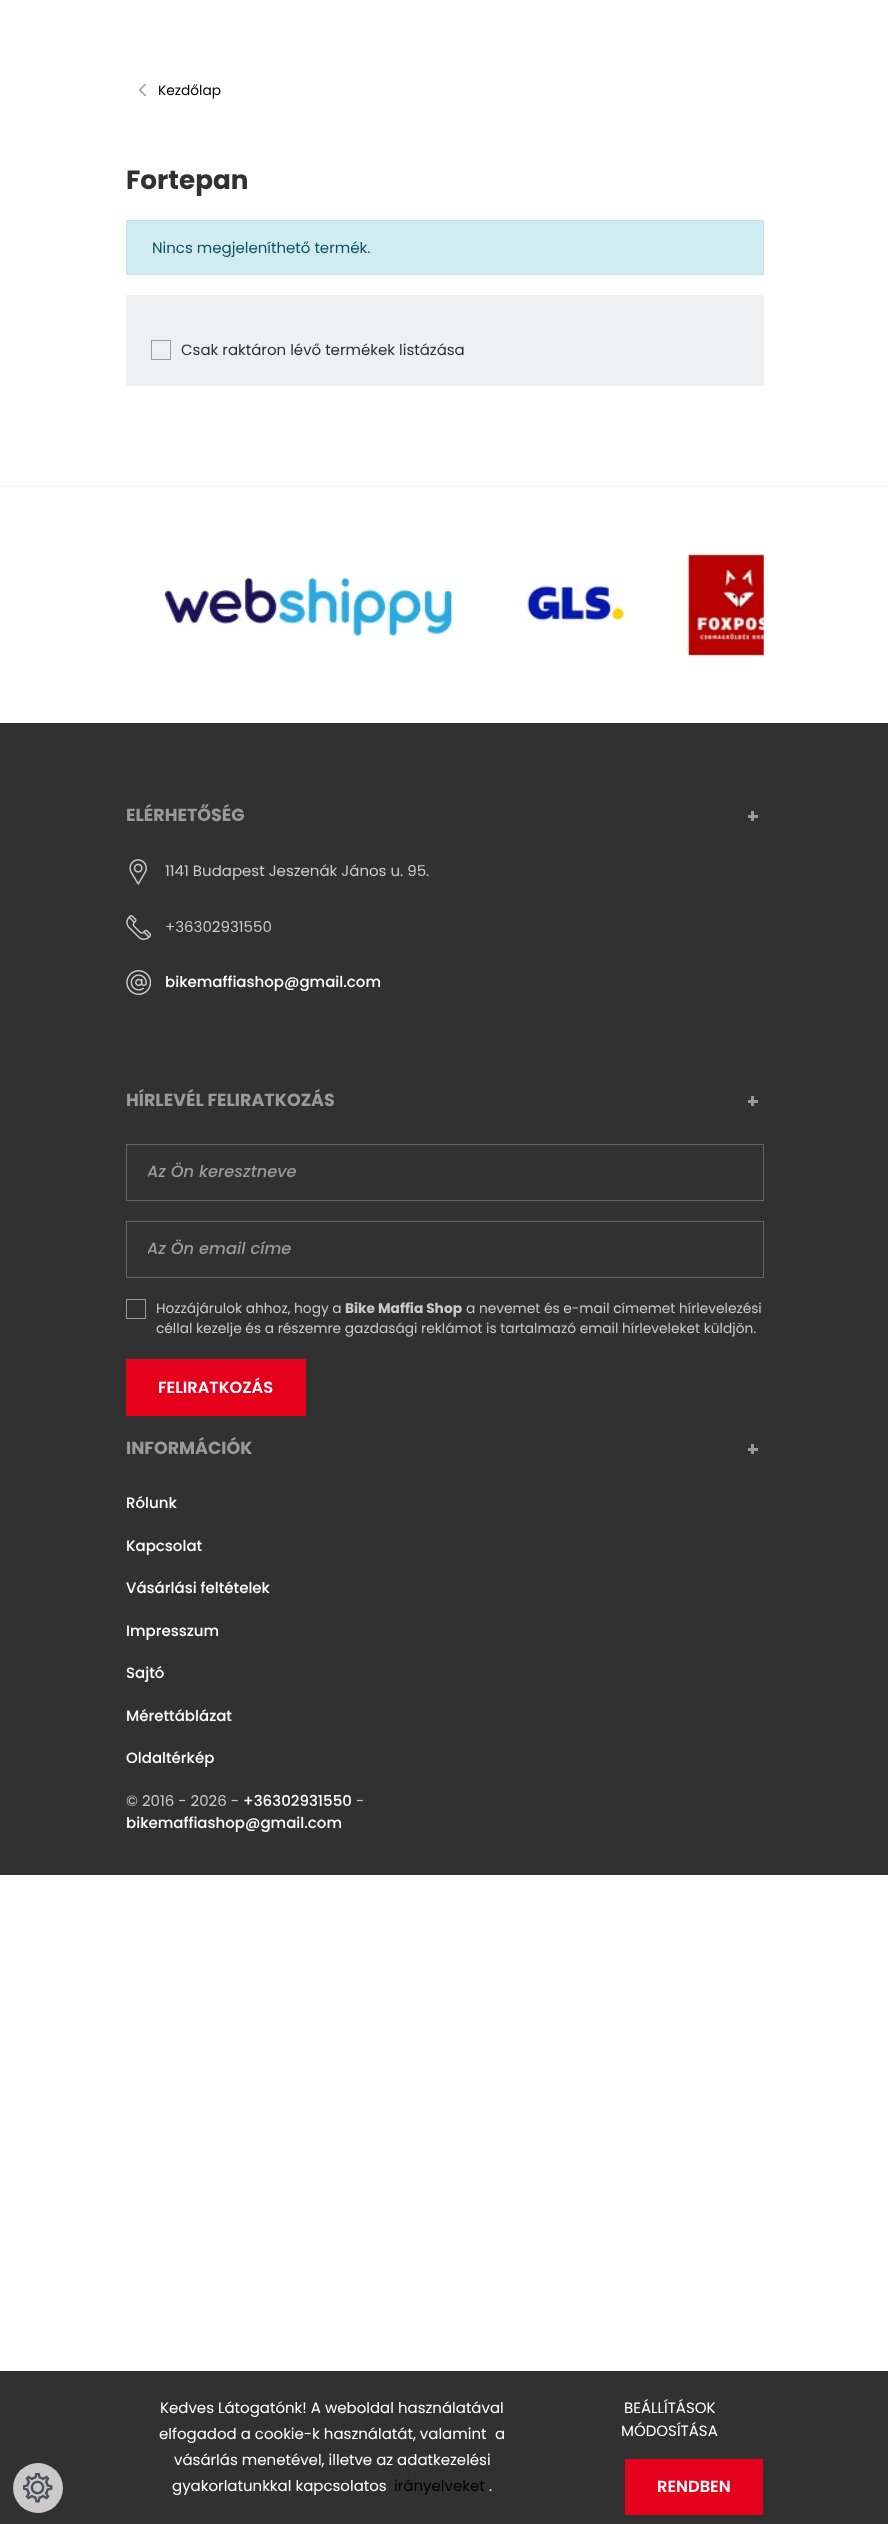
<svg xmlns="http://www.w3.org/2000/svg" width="888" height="2524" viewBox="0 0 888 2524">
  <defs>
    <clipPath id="clip1"><rect x="148" y="1160" width="595" height="25"/></clipPath>
    <clipPath id="clip2"><rect x="148" y="1236" width="595" height="25"/></clipPath>
  </defs>
  <rect width="100%" height="100%" fill="rgb(255,255,255)"/>
  <image x="139" y="84" width="7" height="12" href="pic1.png"/>
  <text x="158" y="95" font-family="Poppins" font-size="13.75" fill="rgb(0,0,0)">Kezdőlap</text>
  <text x="126" y="189" font-family="Poppins" font-size="26.25" font-weight="bold" fill="rgb(49,49,49)">Fortepan</text>
  <rect x="126.5" y="220.5" width="637" height="54" fill="rgb(209,236,241)" stroke="rgb(190,229,235)"/>
  <text x="152" y="253" font-family="Poppins" font-size="15" fill="rgb(12,84,96)">Nincs megjeleníthető termék.</text>
  <rect x="126" y="295" width="638" height="91" fill="rgb(239,240,241)"/>
  <rect x="151.5" y="340.5" width="19" height="19" fill="none" stroke="rgb(154,154,154)"/>
  <text x="181" y="355" font-family="Poppins" font-size="15" fill="rgb(49,49,49)">Csak raktáron lévő termékek listázása</text>
  <rect x="0" y="486" width="888" height="1" fill="rgb(239,240,241)"/>
  <image x="164" y="576" width="291" height="62" href="pic2.png"/>
  <image x="523" y="583" width="103" height="39" href="pic3.png"/>
  <image x="686" y="553" width="78" height="104" href="pic4.png"/>
  <rect x="0" y="723" width="888" height="1152" fill="rgb(49,49,49)"/>
  <text x="126" y="821" font-family="Poppins" font-size="17.5" font-weight="bold" fill="rgb(154,154,154)">ELÉRHETŐSÉG</text>
  <rect x="751" y="811" width="3" height="10" fill="rgb(154,154,154)"/>
  <rect x="748" y="815" width="10" height="3" fill="rgb(154,154,154)"/>
  <image x="129" y="859" width="18" height="26" href="pic5.png"/>
  <text x="165" y="876" font-family="Poppins" font-size="15" fill="rgb(202,202,202)">1141 Budapest Jeszenák János u. 95.</text>
  <image x="126" y="915" width="25" height="25" href="pic6.png"/>
  <text x="165" y="932" font-family="Poppins" font-size="15" fill="rgb(202,202,202)">+36302931550</text>
  <image x="126" y="970" width="25" height="25" href="pic7.png"/>
  <text x="165" y="987" font-family="Poppins" font-size="15" font-weight="500" fill="rgb(255,255,255)">bikemaffiashop@gmail.com</text>
  <text x="126" y="1106" font-family="Poppins" font-size="17.5" font-weight="bold" fill="rgb(154,154,154)">HÍRLEVÉL FELIRATKOZÁS</text>
  <rect x="751" y="1096" width="3" height="10" fill="rgb(154,154,154)"/>
  <rect x="748" y="1100" width="10" height="3" fill="rgb(154,154,154)"/>
  <rect x="126.5" y="1144.5" width="637" height="56" fill="none" stroke="rgb(100,100,100)"/>
  <g clip-path="url(#clip1)">
    <text x="147" y="1177" font-family="Poppins" font-size="16.25" font-weight="500" font-style="italic" fill="rgb(154,154,154)">Az Ön keresztneve</text>
  </g>
  <rect x="126.5" y="1221.5" width="637" height="56" fill="none" stroke="rgb(100,100,100)"/>
  <g clip-path="url(#clip2)">
    <text x="147" y="1254" font-family="Poppins" font-size="16.25" font-weight="500" font-style="italic" fill="rgb(154,154,154)">Az Ön email címe</text>
  </g>
  <rect x="126.5" y="1299.5" width="19" height="19" fill="none" stroke="rgb(154,154,154)"/>
  <text x="156" y="1313" font-family="Poppins" font-size="13.75" fill="rgb(202,202,202)">Hozzájárulok ahhoz, hogy a</text>
  <text x="345" y="1313" font-family="Poppins" font-size="13.75" font-weight="bold" fill="rgb(202,202,202)">Bike Maffia Shop</text>
  <g font-family="Poppins" font-size="13.75" fill="rgb(202,202,202)">
    <text x="466" y="1313">a nevemet és e-mail címemet hírlevelezési</text>
    <text x="156" y="1333">céllal kezelje és a részemre gazdasági reklámot is tartalmazó email hírleveleket küldjön.</text>
  </g>
  <rect x="126" y="1359" width="180" height="57" fill="rgb(229,0,28)"/>
  <text x="158" y="1393" font-family="Poppins" font-size="16.25" font-weight="600" fill="rgb(255,255,255)">FELIRATKOZÁS</text>
  <text x="126" y="1454" font-family="Poppins" font-size="17.5" font-weight="bold" fill="rgb(154,154,154)">INFORMÁCIÓK</text>
  <rect x="751" y="1444" width="3" height="10" fill="rgb(154,154,154)"/>
  <rect x="748" y="1448" width="10" height="3" fill="rgb(154,154,154)"/>
  <g font-family="Poppins" font-size="15" font-weight="500" fill="rgb(255,255,255)">
    <text x="126" y="1508">Rólunk</text>
    <text x="126" y="1551">Kapcsolat</text>
    <text x="126" y="1593">Vásárlási feltételek</text>
    <text x="126" y="1636">Impresszum</text>
    <text x="126" y="1678">Sajtó</text>
    <text x="126" y="1721">Mérettáblázat</text>
    <text x="126" y="1763">Oldaltérkép</text>
  </g>
  <text x="126" y="1806" font-family="Poppins" font-size="15" fill="rgb(202,202,202)">© 2016 - 2026 -</text>
  <text x="243" y="1806" font-family="Poppins" font-size="15" font-weight="500" fill="rgb(255,255,255)">+36302931550</text>
  <text x="356" y="1806" font-family="Poppins" font-size="15" fill="rgb(202,202,202)">-</text>
  <text x="126" y="1828" font-family="Poppins" font-size="15" font-weight="500" fill="rgb(255,255,255)">bikemaffiashop@gmail.com</text>
  <rect x="0" y="2371" width="888" height="153" fill="rgb(49,49,49)"/>
  <circle cx="38" cy="2488" r="25" fill="rgb(202,202,202)"/>
  <image x="23" y="2473" width="30" height="30" href="pic8.png"/>
  <g font-family="Poppins" font-size="15" fill="rgb(255,255,255)">
    <text x="160" y="2413">Kedves Látogatónk! A weboldal használatával</text>
    <text x="159" y="2439">elfogadod a cookie-k használatát, valamint</text>
    <text x="495" y="2439">a</text>
    <text x="174" y="2465">vásárlás menetével, illetve az adatkezelési</text>
    <text x="172" y="2491">gyakorlatunkkal kapcsolatos</text>
  </g>
  <text x="394" y="2491" font-family="Poppins" font-size="15" fill="rgb(0,0,0)">irányelveket</text>
  <g font-family="Poppins" font-size="15" fill="rgb(255,255,255)">
    <text x="489" y="2491">.</text>
    <text x="624" y="2413">BEÁLLÍTÁSOK</text>
    <text x="621" y="2436">MÓDOSÍTÁSA</text>
  </g>
  <rect x="625" y="2459" width="138" height="56" fill="rgb(229,0,28)"/>
  <text x="657" y="2492" font-family="Poppins" font-size="16.25" font-weight="600" fill="rgb(255,255,255)">RENDBEN</text>
</svg>
